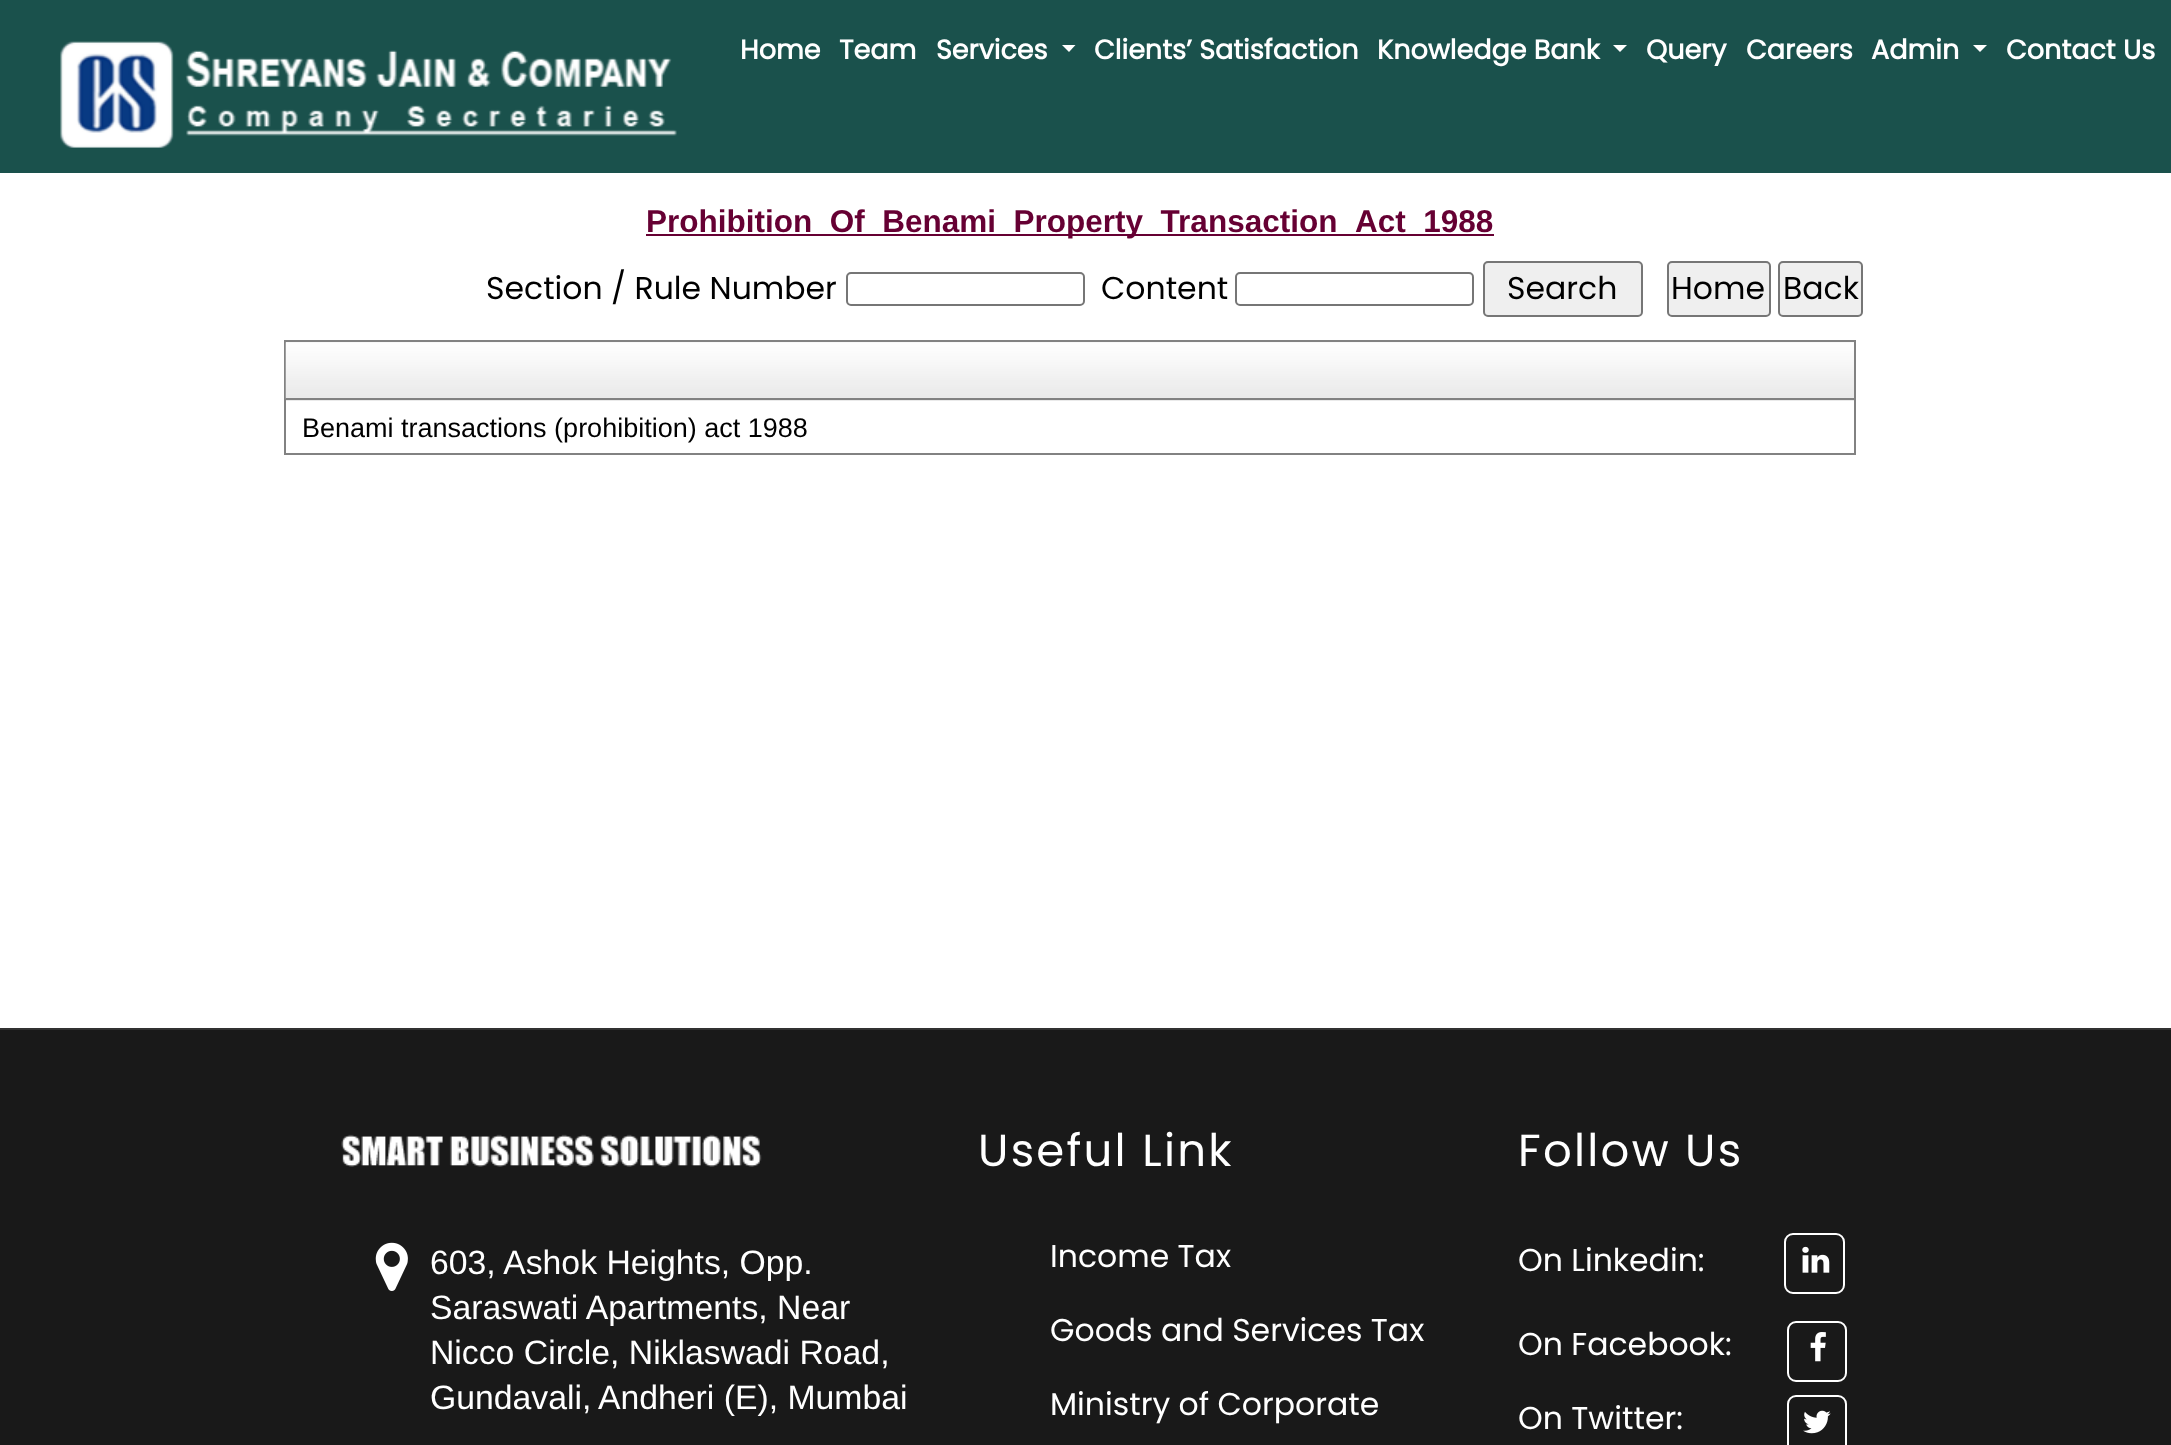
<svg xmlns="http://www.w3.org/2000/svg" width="2171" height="1445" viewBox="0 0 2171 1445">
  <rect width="100%" height="100%" fill="rgb(255,255,255)"/>
  <rect x="0" y="0" width="2171" height="173" fill="rgb(26,81,76)"/>
  <image x="60" y="41" width="617" height="107" href="pic1.png"/>
  <g font-family="Poppins" font-size="27" font-weight="bold" fill="rgb(255,255,255)">
    <text x="740" y="59">Home</text>
    <text x="839" y="59">Team</text>
    <text x="936" y="59">Services</text>
  </g>
  <path d="M1062 45H1075.5L1069 52Z" fill="rgb(255,255,255)"/>
  <g font-family="Poppins" font-size="27" font-weight="bold" fill="rgb(255,255,255)">
    <text x="1094" y="59">Clients’ Satisfaction</text>
    <text x="1377" y="59">Knowledge Bank</text>
  </g>
  <path d="M1613 45H1627L1620 52Z" fill="rgb(255,255,255)"/>
  <g font-family="Poppins" font-size="27" font-weight="bold" fill="rgb(255,255,255)">
    <text x="1646" y="59">Query</text>
    <text x="1746" y="59">Careers</text>
    <text x="1871" y="59">Admin</text>
  </g>
  <path d="M1973 45H1987L1980 52Z" fill="rgb(255,255,255)"/>
  <text x="2006" y="59" font-family="Poppins" font-size="27" font-weight="bold" fill="rgb(255,255,255)">Contact Us</text>
  <rect x="646" y="234" width="848" height="2" fill="rgb(102,0,51)"/>
  <text x="646" y="232" font-family="Liberation Sans" font-size="31.5" font-weight="bold" fill="rgb(102,0,51)">Prohibition_Of_Benami_Property_Transaction_Act_1988</text>
  <text x="486" y="299" font-family="Poppins" font-size="31.5" fill="rgb(0,0,0)">Section / Rule Number</text>
  <rect x="847" y="273" width="237" height="32" rx="4" fill="none" stroke="rgb(118,118,118)" stroke-width="2"/>
  <text x="1101" y="299" font-family="Poppins" font-size="31.5" fill="rgb(0,0,0)">Content</text>
  <rect x="1236" y="273" width="237" height="32" rx="4" fill="none" stroke="rgb(118,118,118)" stroke-width="2"/>
  <rect x="1484" y="262" width="158" height="54" rx="4" fill="rgb(239,239,239)" stroke="rgb(118,118,118)" stroke-width="2"/>
  <text x="1507" y="299" font-family="Poppins" font-size="31.5" fill="rgb(0,0,0)">Search</text>
  <rect x="1668" y="262" width="102" height="54" rx="4" fill="rgb(239,239,239)" stroke="rgb(118,118,118)" stroke-width="2"/>
  <text x="1671" y="299" font-family="Poppins" font-size="31.5" fill="rgb(0,0,0)">Home</text>
  <rect x="1779" y="262" width="83" height="54" rx="4" fill="rgb(239,239,239)" stroke="rgb(118,118,118)" stroke-width="2"/>
  <text x="1783" y="299" font-family="Poppins" font-size="31.5" fill="rgb(0,0,0)">Back</text>
  <rect x="285" y="341" width="1570" height="113" fill="none" stroke="rgb(130,130,130)" stroke-width="2"/>
  <rect x="286" y="342" width="1568" height="59" fill="rgb(234,234,234)"/>
  <image x="285" y="342" width="1569" height="57" href="pic2.png"/>
  <rect x="286" y="398" width="1568" height="2" fill="rgb(130,130,130)"/>
  <text x="302" y="437" font-family="Liberation Sans" font-size="27" fill="rgb(0,0,0)">Benami transactions (prohibition) act 1988</text>
  <rect x="0" y="1030" width="2171" height="415" fill="rgb(25,25,25)"/>
  <rect x="0" y="1028" width="2171" height="2" fill="rgb(49,49,49)"/>
  <image x="341" y="1134" width="421" height="33" href="pic3.png"/>
  <image x="375" y="1242" width="33" height="49" href="pic4.png"/>
  <g font-family="Liberation Sans" font-size="33.75" fill="rgb(255,255,255)">
    <text>
      <tspan x="430" y="1274">603, Ashok Heights, Opp.</tspan>
      <tspan x="430" y="1319">Saraswati Apartments, Near</tspan>
      <tspan x="430" y="1364">Nicco Circle, Niklaswadi Road,</tspan>
      <tspan x="430" y="1409">Gundavali,</tspan>
    </text>
    <text x="598" y="1409">Andheri (E), Mumbai</text>
  </g>
  <text x="978" y="1166" font-family="Poppins" font-size="45" letter-spacing="2.25" fill="rgb(255,255,255)">Useful Link</text>
  <g font-family="Poppins" font-size="31.5" fill="rgb(255,255,255)">
    <text x="1050" y="1267">Income Tax</text>
    <text x="1050" y="1341">Goods and Services Tax</text>
    <text x="1050" y="1415">Ministry of Corporate</text>
  </g>
  <text x="1518" y="1166" font-family="Poppins" font-size="45" letter-spacing="2.25" fill="rgb(255,255,255)">Follow Us</text>
  <text x="1518" y="1271" font-family="Poppins" font-size="31.5" fill="rgb(255,255,255)">On Linkedin:</text>
  <rect x="1785" y="1234" width="59" height="59" rx="8" fill="none" stroke="rgb(255,255,255)" stroke-width="2"/>
  <image x="1802" y="1246" width="28" height="27" href="pic5.png"/>
  <text x="1518" y="1355" font-family="Poppins" font-size="31.5" fill="rgb(255,255,255)">On Facebook:</text>
  <rect x="1788" y="1322" width="58" height="59" rx="8" fill="none" stroke="rgb(255,255,255)" stroke-width="2"/>
  <image x="1810" y="1332" width="16" height="30" href="pic6.png"/>
  <text x="1518" y="1429" font-family="Poppins" font-size="31.5" fill="rgb(255,255,255)">On Twitter:</text>
  <rect x="1788" y="1396" width="58" height="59" rx="8" fill="none" stroke="rgb(255,255,255)" stroke-width="2"/>
  <image x="1803" y="1410" width="28" height="24" href="pic7.png"/>
</svg>
